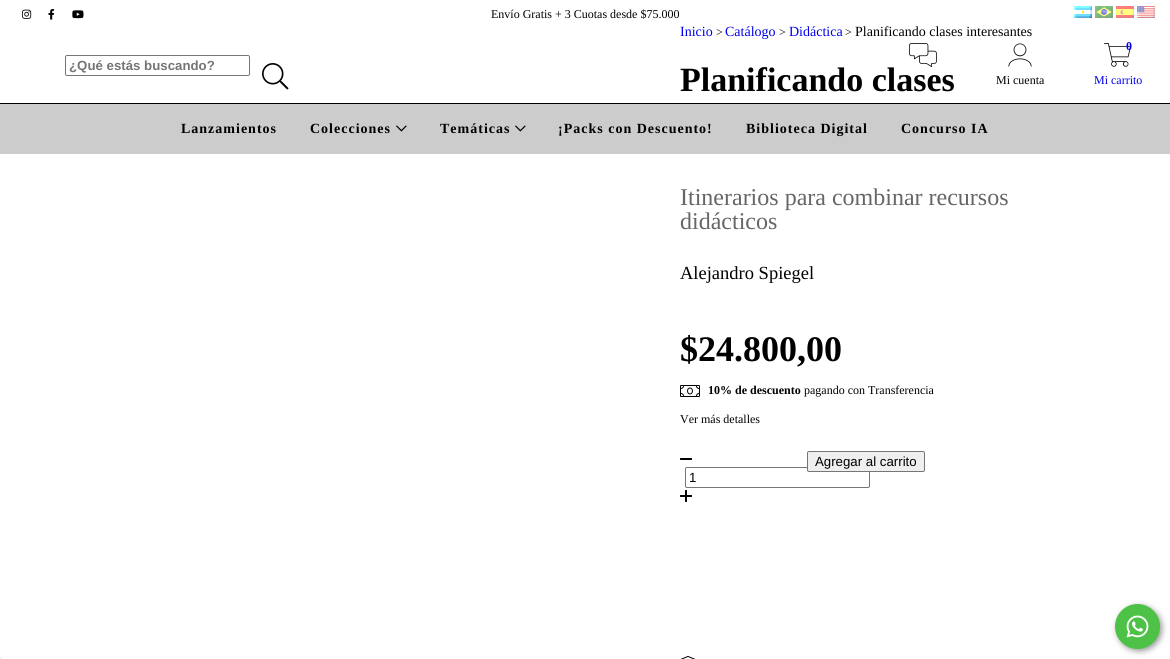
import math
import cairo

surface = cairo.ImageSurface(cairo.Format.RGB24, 1170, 659)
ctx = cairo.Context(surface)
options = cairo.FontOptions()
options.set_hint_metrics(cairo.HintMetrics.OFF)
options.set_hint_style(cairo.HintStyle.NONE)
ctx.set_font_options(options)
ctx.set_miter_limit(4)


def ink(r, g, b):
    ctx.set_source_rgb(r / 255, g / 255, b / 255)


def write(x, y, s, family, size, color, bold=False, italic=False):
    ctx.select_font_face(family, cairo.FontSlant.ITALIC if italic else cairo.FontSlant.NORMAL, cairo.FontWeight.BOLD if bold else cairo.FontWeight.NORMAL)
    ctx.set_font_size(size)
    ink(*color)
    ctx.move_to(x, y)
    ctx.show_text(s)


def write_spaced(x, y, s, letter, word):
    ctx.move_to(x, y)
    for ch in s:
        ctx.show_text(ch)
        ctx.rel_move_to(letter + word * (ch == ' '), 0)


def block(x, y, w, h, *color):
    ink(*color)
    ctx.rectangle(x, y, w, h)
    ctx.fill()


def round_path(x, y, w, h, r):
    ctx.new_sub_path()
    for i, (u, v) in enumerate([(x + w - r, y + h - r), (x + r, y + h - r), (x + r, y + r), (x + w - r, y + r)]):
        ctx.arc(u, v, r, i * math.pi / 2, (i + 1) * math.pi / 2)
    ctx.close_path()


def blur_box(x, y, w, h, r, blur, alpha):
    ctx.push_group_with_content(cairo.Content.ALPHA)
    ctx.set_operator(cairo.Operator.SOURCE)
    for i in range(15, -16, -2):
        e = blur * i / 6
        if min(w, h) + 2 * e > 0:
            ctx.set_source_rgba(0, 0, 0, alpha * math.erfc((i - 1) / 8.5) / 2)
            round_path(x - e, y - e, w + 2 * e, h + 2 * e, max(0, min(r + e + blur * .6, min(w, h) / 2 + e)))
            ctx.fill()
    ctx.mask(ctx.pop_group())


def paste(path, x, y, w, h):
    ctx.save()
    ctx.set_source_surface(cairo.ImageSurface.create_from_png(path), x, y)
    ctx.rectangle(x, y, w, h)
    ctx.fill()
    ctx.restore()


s1 = dict(family="Liberation Serif", size=12, color=(0, 0, 0))
s2 = dict(family="Liberation Sans", size=13.25, color=(117, 117, 117), bold=True)
s3 = dict(family="Liberation Serif", size=12, color=(0, 0, 238), bold=True)
s4 = dict(family="Liberation Serif", size=12, color=(0, 0, 238))
s5 = dict(family="Liberation Serif", size=14, color=(0, 0, 238))
s6 = dict(family="Liberation Serif", size=14, color=(0, 0, 0))
s7 = dict(family="Liberation Serif", size=34, color=(0, 0, 0), bold=True)
s8 = dict(family="Liberation Serif", size=24, color=(102, 102, 102))
s9 = dict(family="Liberation Serif", size=18.5, color=(0, 0, 0))
s10 = dict(family="Liberation Serif", size=36, color=(0, 0, 0), bold=True)
s11 = dict(family="Liberation Serif", size=12, color=(0, 0, 0), bold=True)
s12 = dict(family="Liberation Sans", size=13.25, color=(0, 0, 0))

ink(255, 255, 255)
ctx.paint()
paste("pic1.png", 22, 9, 10, 10)
paste("pic2.png", 48, 9, 7, 11)
paste("pic3.png", 72, 10, 12, 9)
write(491, 18, "Envío Gratis + 3 Cuotas desde $75.000", **s1)
paste("pic4.png", 1074, 6, 18, 12)
paste("pic5.png", 1095, 6, 18, 12)
paste("pic6.png", 1116, 6, 18, 12)
paste("pic7.png", 1137, 6, 18, 12)
round_path(65.5, 55.5, 184, 20, 1.5)
ink(118, 118, 118)
ctx.set_line_width(1)
ctx.stroke()
write(69, 70, "¿Qué estás buscando?", **s2)
paste("pic8.png", 262, 63, 27, 27)
paste("pic9.png", 909, 43, 28, 24)
paste("pic10.png", 1104, 43, 27, 24)
write(1126, 50, "0", **s3)
write(1094, 84, "Mi carrito", **s4)
paste("pic11.png", 1008, 43, 24, 24)
write(996, 84, "Mi cuenta", **s1)
block(0, 104, 1170, 50, 204, 204, 204)
block(0, 103, 1170, 1, 0, 0, 0)
ctx.select_font_face("Liberation Serif", cairo.FontSlant.NORMAL, cairo.FontWeight.BOLD)
ctx.set_font_size(14)
write_spaced(181, 133, "Lanzamientos", 1, 0)
write_spaced(310, 133, "Colecciones", 1, 0)
paste("pic12.png", 396, 125, 11, 7)
write_spaced(440, 133, "Temáticas", 1, 0)
paste("pic12.png", 515, 125, 11, 7)
write_spaced(558, 133, "¡Packs con Descuento!", 1, 0)
write_spaced(746, 133, "Biblioteca Digital", 1, 0)
write_spaced(901, 133, "Concurso IA", 1, 0)
write(680, 36, "Inicio", **s5)
write(716, 36, ">", **s1)
write(725, 36, "Catálogo", **s5)
write(779, 36, ">", **s1)
write(789, 36, "Didáctica", **s5)
write(845, 36, ">", **s1)
write(855, 36, "Planificando clases interesantes", **s6)
write(680, 91, "Planificando clases", **s7)
write(680, 205, "Itinerarios para combinar recursos", **s8)
write(680, 229, "didácticos", **s8)
write(680, 279, "Alejandro Spiegel", **s9)
write(680, 361, "$24.800,00", **s10)
paste("pic13.png", 680, 385, 20, 12)
write(708, 394, "10% de descuento", **s11)
write(804, 394, "pagando con Transferencia", **s1)
write(680, 423, "Ver más detalles", **s1)
round_path(685.5, 467.5, 184, 20, 1.5)
ink(118, 118, 118)
ctx.stroke()
ink(239, 239, 239)
round_path(807.5, 451.5, 117, 20, 1.5)
ctx.fill_preserve()
ink(118, 118, 118)
ctx.stroke()
write(815, 466, "Agregar al carrito", **s12)
paste("pic14.png", 680, 458, 12, 2)
write(689, 482, "1", **s12)
paste("pic15.png", 680, 490, 12, 12)
paste("pic16.png", 681, 656, 14, 3)
block(0, 657, 2, 2, 245, 245, 245)
ink(0, 0, 0)
blur_box(1117, 606, 45, 45, 22.5, 3, 0.4)
ink(77, 194, 71)
ctx.arc(1137.5, 626.5, 22.5, 0, 2 * math.pi)
ctx.fill()
paste("pic17.png", 1126, 615, 23, 23)
surface.write_to_png("screenshot.png")
